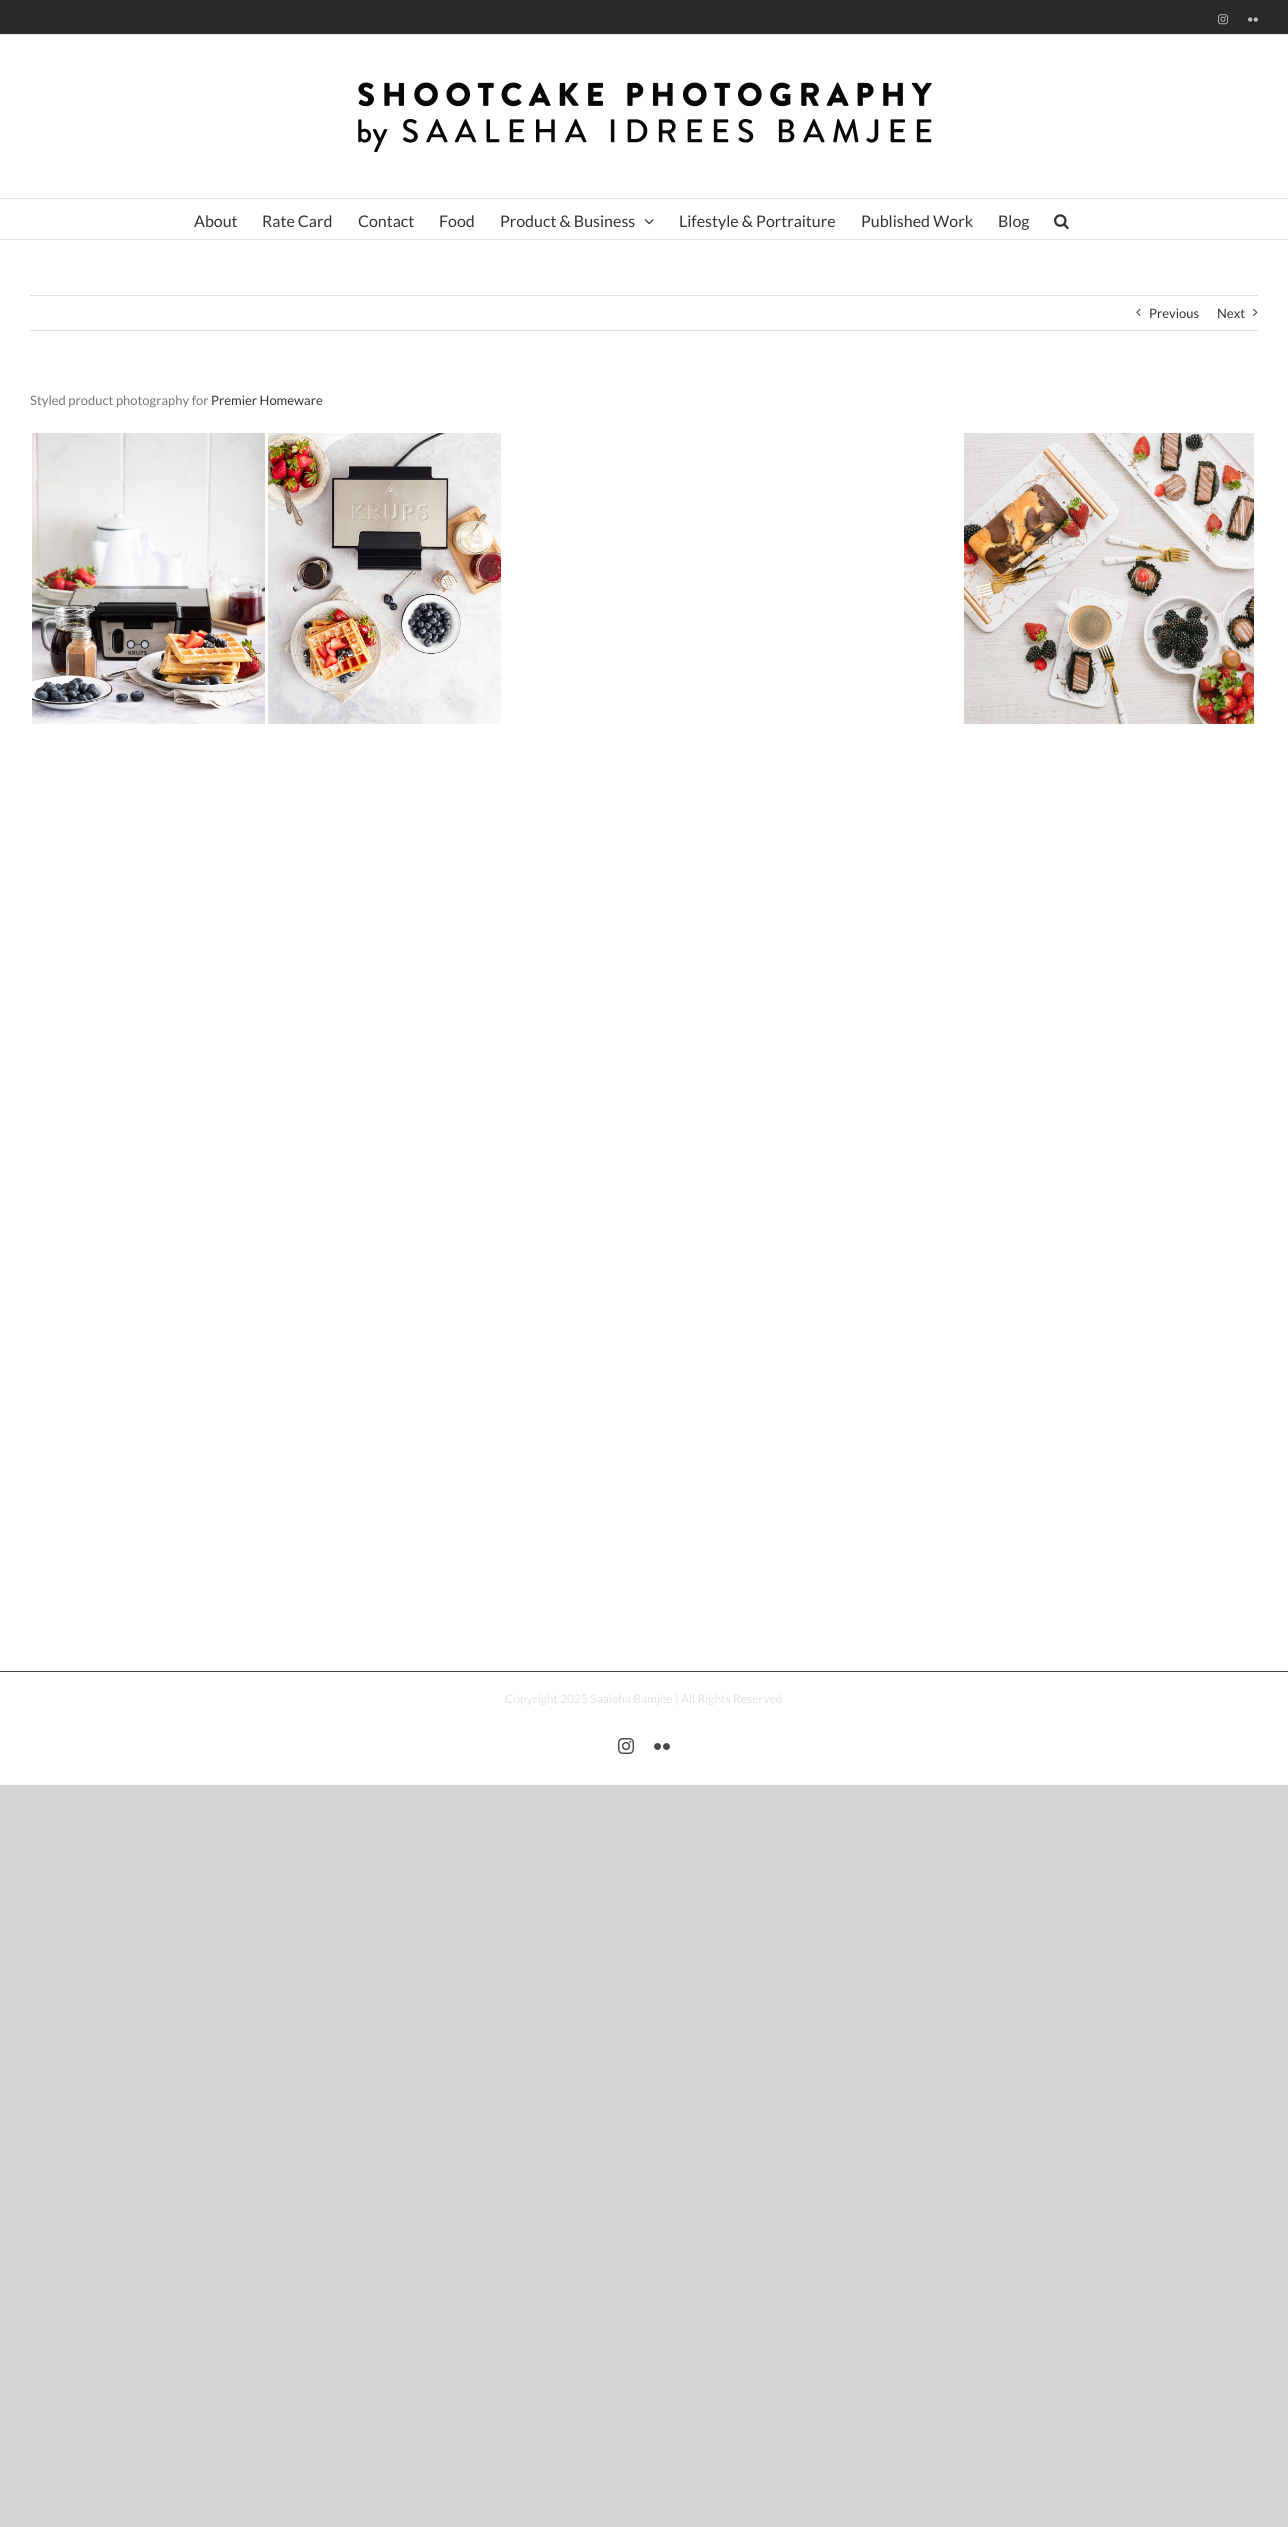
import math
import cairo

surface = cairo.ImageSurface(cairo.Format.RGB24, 1288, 2527)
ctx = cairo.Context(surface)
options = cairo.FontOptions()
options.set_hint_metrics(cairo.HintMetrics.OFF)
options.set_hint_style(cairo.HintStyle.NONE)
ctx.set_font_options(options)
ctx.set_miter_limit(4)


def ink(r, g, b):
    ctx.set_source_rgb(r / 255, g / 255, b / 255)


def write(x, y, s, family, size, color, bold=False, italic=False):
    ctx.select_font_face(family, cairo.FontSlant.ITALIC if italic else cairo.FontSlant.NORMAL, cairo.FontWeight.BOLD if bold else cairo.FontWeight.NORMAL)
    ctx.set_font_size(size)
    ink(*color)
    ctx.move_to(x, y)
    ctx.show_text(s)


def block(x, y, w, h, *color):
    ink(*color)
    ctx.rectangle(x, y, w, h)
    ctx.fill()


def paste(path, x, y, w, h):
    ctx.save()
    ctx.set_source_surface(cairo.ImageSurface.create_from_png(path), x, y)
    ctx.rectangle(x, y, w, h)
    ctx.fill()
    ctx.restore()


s1 = dict(family="Lato", size=16, color=(51, 51, 51))
s2 = dict(family="Lato", size=13, color=(51, 51, 51))
s3 = dict(family="Lato", size=13, color=(116, 116, 116))
s4 = dict(family="Lato", size=12, color=(226, 226, 226))

ink(215, 214, 214)
ctx.paint()
block(0, 35, 1288, 1750, 255, 255, 255)
block(0, 0, 1288, 34, 41, 41, 42)
block(0, 34, 1288, 1, 229, 229, 229)
paste("pic1.png", 1218, 14, 10, 11)
paste("pic2.png", 1248, 17, 10, 5)
block(0, 198, 1288, 1, 229, 229, 229)
paste("pic3.png", 358, 82, 574, 70)
block(0, 239, 1288, 1, 229, 229, 229)
write(194, 227, "About", **s1)
write(262, 227, "Rate Card", **s1)
write(358, 227, "Contact", **s1)
write(439, 227, "Food", **s1)
write(500, 227, "Product & Business", **s1)
paste("pic4.png", 644, 219, 10, 6)
write(679, 227, "Lifestyle & Portraiture", **s1)
write(861, 227, "Published Work", **s1)
write(998, 227, "Blog", **s1)
paste("pic5.png", 1054, 214, 15, 16)
block(30, 295, 1228, 1, 224, 222, 222)
block(30, 330, 1228, 1, 224, 222, 222)
paste("pic6.png", 1136, 308, 5, 8)
write(1149, 318, "Previous", **s2)
write(1217, 318, "Next", **s2)
paste("pic7.png", 1253, 308, 5, 8)
write(30, 405, "Styled product photography for", **s3)
write(211, 405, "Premier Homeware", **s2)
paste("pic8.png", 32, 433, 233, 291)
paste("pic9.png", 268, 433, 233, 291)
paste("pic10.png", 964, 433, 290, 291)
block(0, 1671, 1288, 1, 75, 76, 77)
write(505, 1703, "Copyright 2025 Saaleha Bamjee | All Rights Reserved", **s4)
paste("pic11.png", 618, 1738, 16, 16)
paste("pic12.png", 654, 1743, 16, 7)
surface.write_to_png("screenshot.png")
